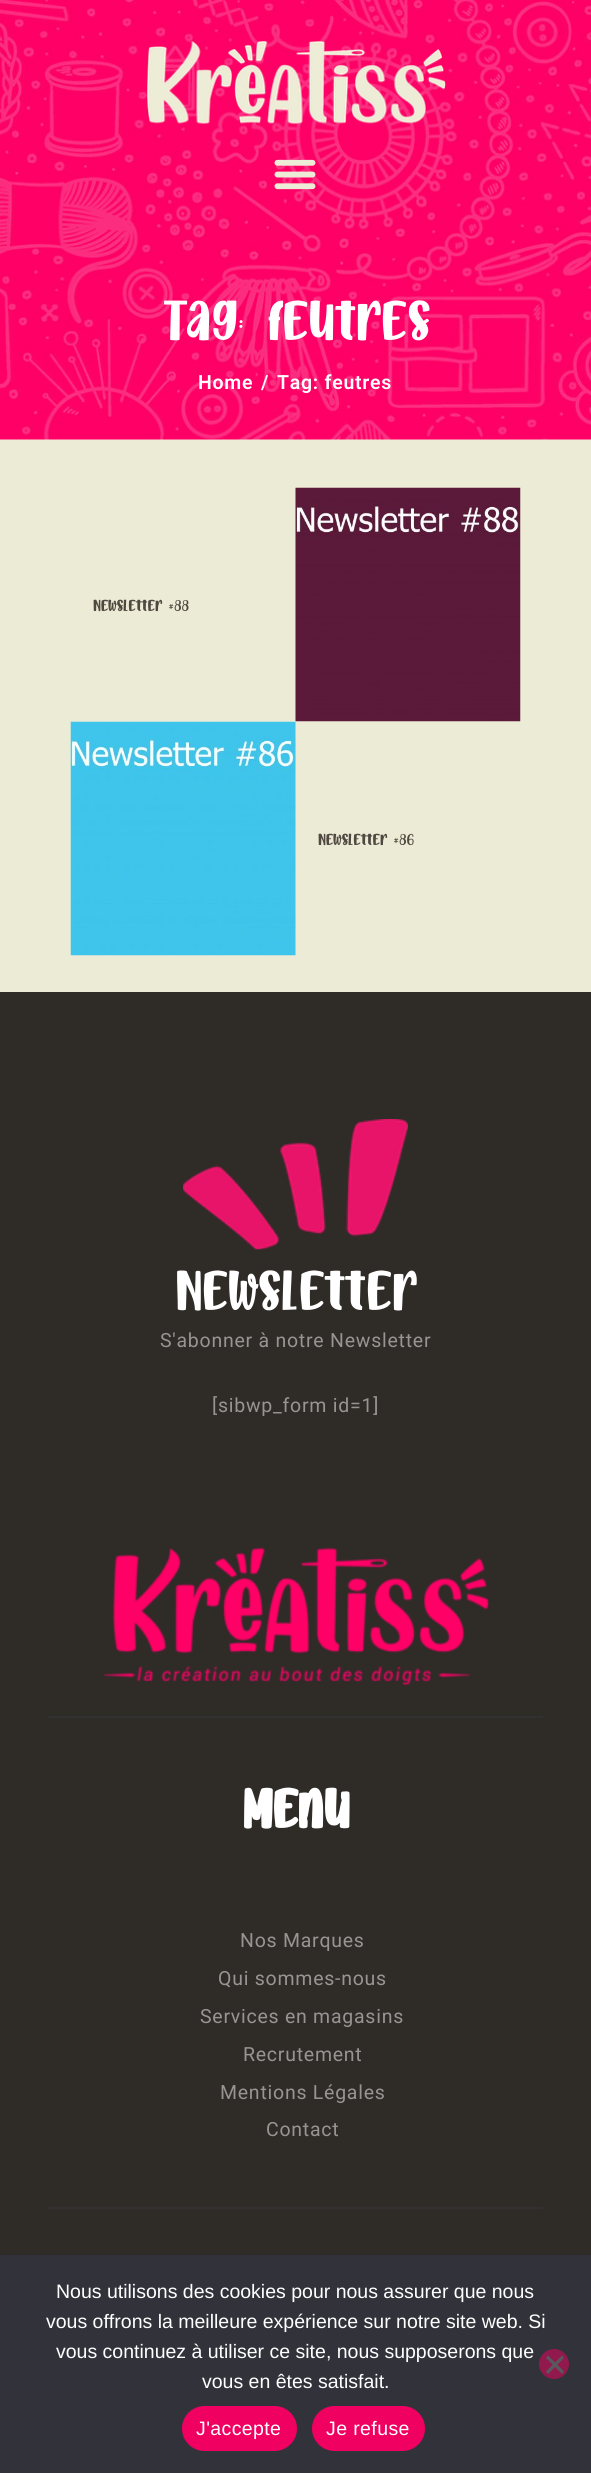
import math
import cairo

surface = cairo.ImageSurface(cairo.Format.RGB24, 591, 2473)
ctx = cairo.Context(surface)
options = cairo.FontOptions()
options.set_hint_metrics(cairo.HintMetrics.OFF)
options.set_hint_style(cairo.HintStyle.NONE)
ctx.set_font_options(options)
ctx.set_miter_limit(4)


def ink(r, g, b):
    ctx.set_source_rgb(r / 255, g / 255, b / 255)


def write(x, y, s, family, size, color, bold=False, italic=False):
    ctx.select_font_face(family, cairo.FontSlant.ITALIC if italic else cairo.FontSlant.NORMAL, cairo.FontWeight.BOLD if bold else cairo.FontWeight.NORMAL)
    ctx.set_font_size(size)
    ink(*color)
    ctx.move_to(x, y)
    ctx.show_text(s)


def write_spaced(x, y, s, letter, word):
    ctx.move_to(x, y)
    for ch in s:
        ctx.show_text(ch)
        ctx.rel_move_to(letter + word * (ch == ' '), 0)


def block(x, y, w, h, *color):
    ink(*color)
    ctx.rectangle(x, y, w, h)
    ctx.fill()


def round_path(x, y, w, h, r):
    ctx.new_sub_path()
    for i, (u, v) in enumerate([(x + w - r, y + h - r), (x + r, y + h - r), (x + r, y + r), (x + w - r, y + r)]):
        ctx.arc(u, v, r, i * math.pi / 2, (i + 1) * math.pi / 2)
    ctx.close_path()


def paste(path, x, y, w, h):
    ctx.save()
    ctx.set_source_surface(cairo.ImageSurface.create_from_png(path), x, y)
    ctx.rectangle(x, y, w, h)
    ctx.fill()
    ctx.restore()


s1 = dict(family="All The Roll", size=84, color=(255, 255, 255))
s2 = dict(family="All The Roll", size=24, color=(78, 72, 65))
s3 = dict(family="All The Roll", size=81, color=(255, 255, 255), bold=True)
s4 = dict(family="Liberation Sans", size=19.5, color=(255, 255, 255))

ink(236, 235, 213)
ctx.paint()
paste("pic1.png", 0, 0, 591, 440)
paste("pic2.png", 147, 41, 299, 84)
paste("pic3.png", 274, 159, 42, 31)
write(162, 340, "Tag: feutres", **s1)
ctx.select_font_face("Roboto SemiBold")
ctx.set_font_size(19.5)
write_spaced(198, 389, "Home", 0.75, 0)
write_spaced(261, 389, "/", 0.75, 0)
write_spaced(277, 389, "Tag: feutres", 0.75, 0)
write(93, 611, "Newsletter #88", **s2)
paste("pic4.png", 295, 487, 226, 235)
paste("pic5.png", 70, 721, 226, 235)
write(318, 845, "Newsletter #86", **s2)
block(0, 992, 591, 1263, 47, 43, 39)
paste("pic6.png", 183, 1119, 225, 131)
write(175, 1310, "Newsletter", **s1)
ctx.select_font_face("Roboto")
ctx.set_font_size(19.5)
ink(151, 149, 147)
write_spaced(160, 1347, "S'abonner à notre Newsletter", 0.75, 0)
write_spaced(212, 1412, "[sibwp_form id=1]", 0.75, 0)
paste("pic7.png", 103, 1547, 387, 139)
block(48, 1716, 495, 2, 49, 49, 49)
write(242, 1828, "Menu", **s3)
ctx.select_font_face("Roboto")
ctx.set_font_size(19.5)
ink(151, 149, 147)
write_spaced(240, 1947, "Nos Marques", 0.75, 0)
write_spaced(218, 1985, "Qui sommes-nous", 0.75, 0)
write_spaced(200, 2023, "Services en magasins", 0.75, 0)
write_spaced(243, 2061, "Recrutement", 0.75, 0)
write_spaced(220, 2099, "Mentions Légales", 0.75, 0)
write_spaced(266, 2136, "Contact", 0.75, 0)
block(48, 2207, 495, 2, 49, 49, 49)
block(0, 2255, 591, 218, 50, 50, 58)
write(56, 2298, "Nous utilisons des cookies pour nous assurer que nous", **s4)
write(46, 2328, "vous offrons la meilleure expérience sur notre site web. Si", **s4)
write(56, 2358, "vous continuez à utiliser ce site, nous supposerons que", **s4)
write(202, 2388, "vous en êtes satisfait.", **s4)
ink(145, 25, 77)
ctx.new_path()
ctx.arc(554, 2364, 15, 0, 2 * math.pi)
ctx.fill()
ink(89, 89, 93)
ctx.new_path()
ctx.move_to(562, 2355.5)
ctx.line_to(564, 2358)
ctx.line_to(548, 2374)
ctx.line_to(546, 2371.5)
ctx.close_path()
ctx.fill()
ctx.new_path()
ctx.move_to(546, 2358)
ctx.line_to(548, 2355.5)
ctx.line_to(564, 2371.5)
ctx.line_to(562, 2374)
ctx.close_path()
ctx.fill()
ink(240, 0, 96)
round_path(182, 2406, 115, 45, 22.5)
ctx.fill()
ink(255, 255, 255)
write_spaced(196, 2435, "J'accepte", 0.4, 0)
ink(240, 0, 96)
round_path(312, 2406, 113, 45, 22.5)
ctx.fill()
ink(255, 255, 255)
write_spaced(326, 2435, "Je refuse", 0.4, 0)
surface.write_to_png("screenshot.png")
